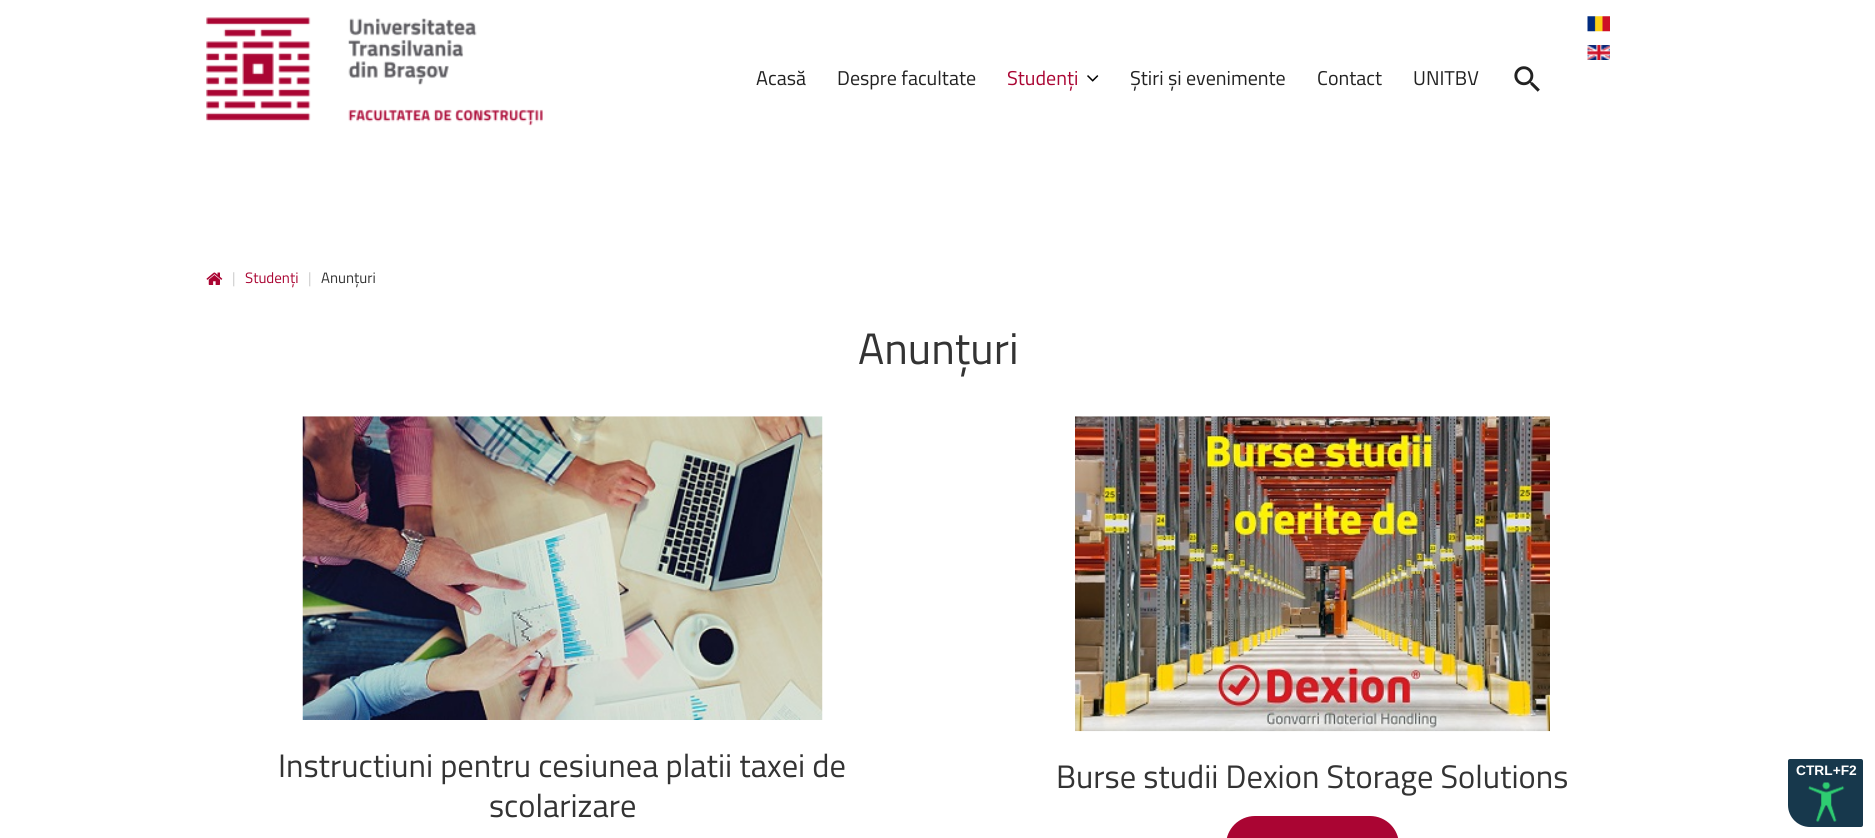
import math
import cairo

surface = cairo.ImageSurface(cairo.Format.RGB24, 1875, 838)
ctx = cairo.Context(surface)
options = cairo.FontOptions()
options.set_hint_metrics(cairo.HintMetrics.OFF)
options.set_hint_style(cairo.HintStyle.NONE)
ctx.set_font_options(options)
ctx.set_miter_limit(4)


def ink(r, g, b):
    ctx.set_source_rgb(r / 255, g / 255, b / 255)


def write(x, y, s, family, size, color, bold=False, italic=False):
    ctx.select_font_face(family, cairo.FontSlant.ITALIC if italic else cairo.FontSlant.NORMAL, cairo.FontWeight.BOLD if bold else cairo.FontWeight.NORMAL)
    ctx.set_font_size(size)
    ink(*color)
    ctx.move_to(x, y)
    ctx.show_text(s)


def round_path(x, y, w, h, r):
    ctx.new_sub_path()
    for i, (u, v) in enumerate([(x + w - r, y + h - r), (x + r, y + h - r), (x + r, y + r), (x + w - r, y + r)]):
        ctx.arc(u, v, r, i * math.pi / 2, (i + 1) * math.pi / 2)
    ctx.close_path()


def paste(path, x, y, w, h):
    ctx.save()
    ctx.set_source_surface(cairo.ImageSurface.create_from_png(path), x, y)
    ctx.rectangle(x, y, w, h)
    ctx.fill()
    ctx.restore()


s1 = dict(family="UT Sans", size=20, color=(34, 34, 34))
s2 = dict(family="UT Sans", size=20, color=(170, 5, 51))
s3 = dict(family="UT Sans", size=15, color=(204, 204, 204))
s4 = dict(family="UT Sans", size=15, color=(170, 5, 51))
s5 = dict(family="UT Sans", size=15, color=(51, 51, 51))
s6 = dict(family="UT Sans", size=44, color=(51, 51, 51))
s7 = dict(family="UT Sans", size=32.5, color=(51, 51, 51))
s8 = dict(family="Liberation Sans", size=13.75, color=(255, 255, 255), bold=True)

ink(255, 255, 255)
ctx.paint()
paste("pic1.png", 206, 17, 337, 109)
write(756, 85, "Acasă", **s1)
write(837, 85, "Despre facultate", **s1)
write(1007, 85, "Studenți", **s2)
paste("pic2.png", 1087, 75, 12, 7)
write(1130, 85, "Știri și evenimente", **s1)
write(1317, 85, "Contact", **s1)
write(1413, 85, "UNITBV", **s1)
paste("pic3.png", 1514, 66, 26, 26)
paste("pic4.png", 1587, 16, 23, 16)
paste("pic5.png", 1587, 45, 23, 15)
paste("pic6.png", 206, 272, 17, 13)
write(232, 283, "|", **s3)
write(245, 283, "Studenți", **s4)
write(308, 283, "|", **s3)
write(321, 283, "Anunțuri", **s5)
write(858, 364, "Anunțuri", **s6)
paste("pic7.png", 302, 416, 521, 304)
write(278, 777, "Instructiuni pentru cesiunea platii taxei de", **s7)
write(489, 817, "scolarizare", **s7)
paste("pic8.png", 1075, 416, 475, 316)
write(1056, 788, "Burse studii Dexion Storage Solutions", **s7)
ink(170, 5, 51)
round_path(1226, 816, 173, 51, 29)
ctx.fill()
ink(23, 56, 76)
ctx.new_path()
ctx.move_to(1790, 757.5)
ctx.line_to(1861, 757.5)
ctx.curve_to(1863, 757.5, 1864.5, 759, 1864.5, 761)
ctx.line_to(1864.5, 825)
ctx.curve_to(1864.5, 827, 1863, 828.5, 1861, 828.5)
ctx.line_to(1810, 828.5)
ctx.curve_to(1797, 828.5, 1786.5, 818, 1786.5, 805)
ctx.line_to(1786.5, 761)
ctx.curve_to(1786.5, 759, 1788, 757.5, 1790, 757.5)
ctx.close_path()
ctx.fill_preserve()
ink(255, 255, 255)
ctx.set_line_width(3)
ctx.stroke()
write(1796, 775, "CTRL+F2", **s8)
paste("pic9.png", 1808, 782, 37, 40)
surface.write_to_png("screenshot.png")
